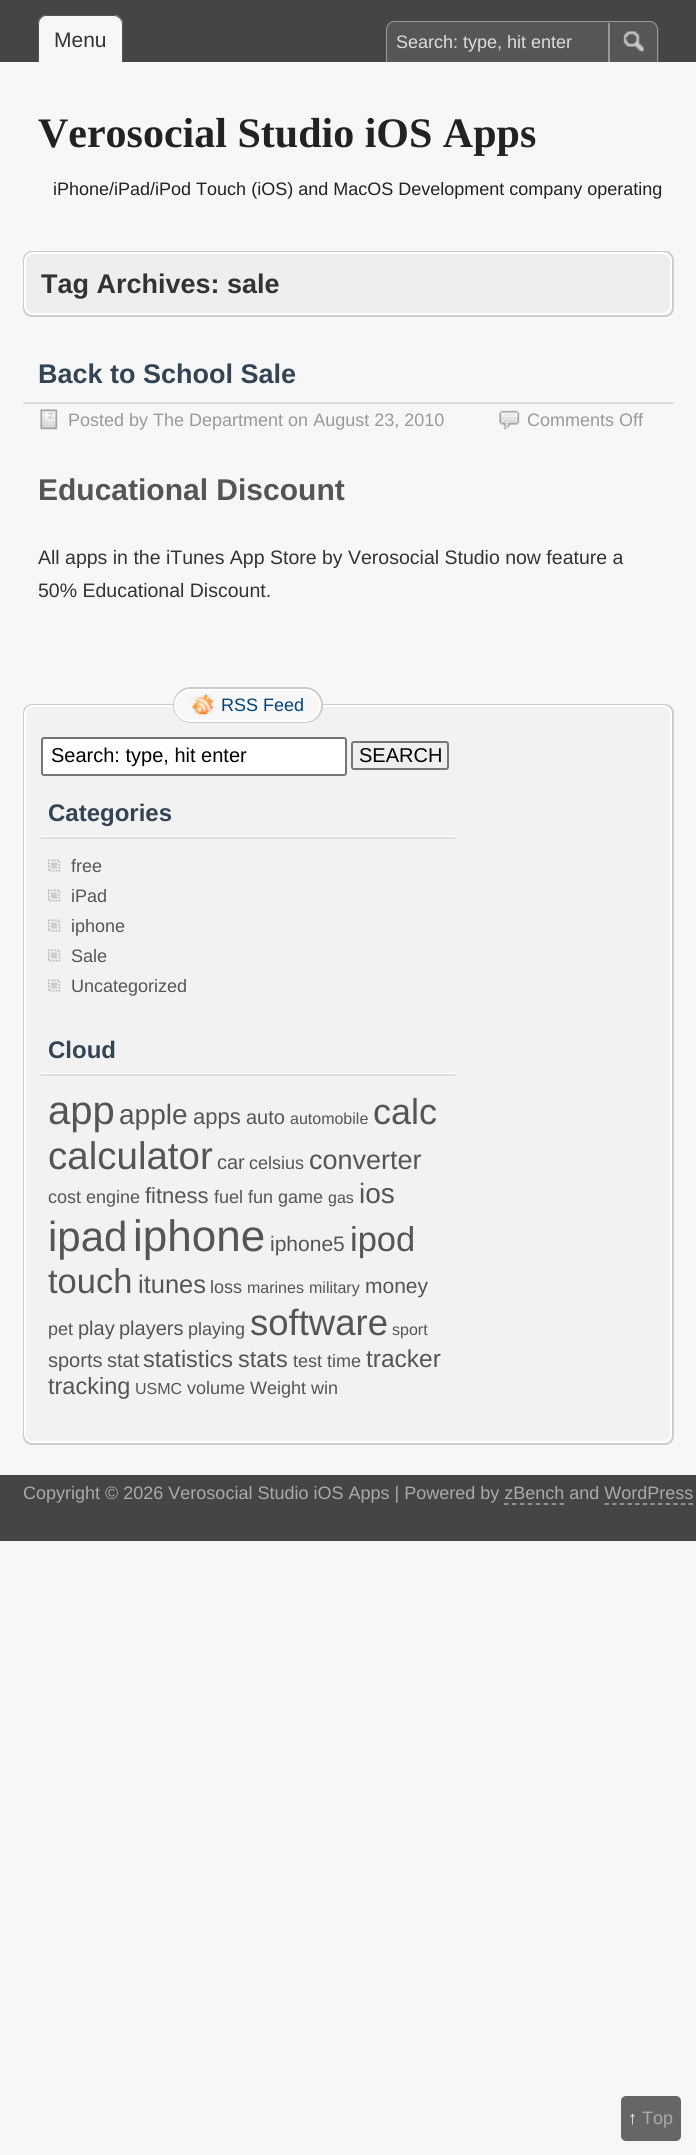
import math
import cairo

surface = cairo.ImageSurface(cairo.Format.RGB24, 696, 2155)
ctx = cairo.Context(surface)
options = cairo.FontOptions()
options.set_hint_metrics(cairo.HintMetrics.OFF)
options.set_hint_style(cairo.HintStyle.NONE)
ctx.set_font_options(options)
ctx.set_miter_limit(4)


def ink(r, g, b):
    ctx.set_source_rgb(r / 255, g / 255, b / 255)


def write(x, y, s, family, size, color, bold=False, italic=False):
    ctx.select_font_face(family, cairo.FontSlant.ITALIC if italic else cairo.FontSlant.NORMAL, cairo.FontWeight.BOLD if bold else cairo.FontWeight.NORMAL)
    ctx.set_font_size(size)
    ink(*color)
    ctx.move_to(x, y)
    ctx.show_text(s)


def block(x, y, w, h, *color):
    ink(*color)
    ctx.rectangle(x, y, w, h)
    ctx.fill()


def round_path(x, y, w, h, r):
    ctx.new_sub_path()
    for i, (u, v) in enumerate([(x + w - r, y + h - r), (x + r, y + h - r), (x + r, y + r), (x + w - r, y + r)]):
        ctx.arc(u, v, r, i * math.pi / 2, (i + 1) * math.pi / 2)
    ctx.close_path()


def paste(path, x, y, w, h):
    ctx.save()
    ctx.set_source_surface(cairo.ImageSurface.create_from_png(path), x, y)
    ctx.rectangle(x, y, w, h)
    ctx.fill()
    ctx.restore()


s1 = dict(family="Liberation Sans", size=21, color=(51, 51, 51))
s2 = dict(family="Liberation Sans", size=18, color=(221, 221, 221))
s3 = dict(family="Liberation Serif", size=42, color=(34, 34, 34), bold=True)
s4 = dict(family="Liberation Sans", size=18, color=(34, 34, 34))
s5 = dict(family="Liberation Sans", size=27, color=(51, 51, 51), bold=True)
s6 = dict(family="Liberation Sans", size=27, color=(51, 68, 85), bold=True)
s7 = dict(family="Liberation Sans", size=18, color=(153, 153, 153))
s8 = dict(family="Liberation Sans", size=30, color=(85, 85, 85), bold=True)
s9 = dict(family="Liberation Sans", size=19.5, color=(51, 51, 51))
s10 = dict(family="Liberation Sans", size=18, color=(0, 68, 119))
s11 = dict(family="Liberation Sans", size=20, color=(0, 0, 0))
s12 = dict(family="Liberation Sans", size=24, color=(51, 68, 85), bold=True)
s13 = dict(family="Liberation Sans", size=18, color=(85, 85, 85))
s14 = dict(family="Liberation Sans", size=40, color=(85, 85, 85))
s15 = dict(family="Liberation Sans", size=28, color=(85, 85, 85))
s16 = dict(family="Liberation Sans", size=22, color=(85, 85, 85))
s17 = dict(family="Liberation Sans", size=20, color=(85, 85, 85))
s18 = dict(family="Liberation Sans", size=16, color=(85, 85, 85))
s19 = dict(family="Liberation Sans", size=36, color=(85, 85, 85))
s20 = dict(family="Liberation Sans", size=38.5, color=(85, 85, 85))
s21 = dict(family="Liberation Sans", size=27, color=(85, 85, 85))
s22 = dict(family="Liberation Sans", size=42, color=(85, 85, 85))
s23 = dict(family="Liberation Sans", size=44, color=(85, 85, 85))
s24 = dict(family="Liberation Sans", size=21, color=(85, 85, 85))
s25 = dict(family="Liberation Sans", size=34.5, color=(85, 85, 85))
s26 = dict(family="Liberation Sans", size=25.5, color=(85, 85, 85))
s27 = dict(family="Liberation Sans", size=36.5, color=(85, 85, 85))
s28 = dict(family="Liberation Sans", size=23.5, color=(85, 85, 85))
s29 = dict(family="Liberation Sans", size=24.5, color=(85, 85, 85))
s30 = dict(family="Liberation Sans", size=18, color=(170, 170, 170))
s31 = dict(family="Liberation Sans", size=18, color=(250, 250, 250), bold=True)

ink(247, 247, 247)
ctx.paint()
block(0, 0, 696, 62, 69, 69, 70)
ink(247, 247, 247)
ctx.new_path()
ctx.move_to(47, 15)
ctx.line_to(114, 15)
ctx.curve_to(119, 15, 123, 19, 123, 24)
ctx.line_to(123, 62)
ctx.line_to(38, 62)
ctx.line_to(38, 24)
ctx.curve_to(38, 19, 42, 15, 47, 15)
ctx.close_path()
ctx.fill()
ink(85, 85, 85)
ctx.set_fill_rule(cairo.FillRule.EVEN_ODD)
ctx.new_path()
ctx.move_to(46, 15)
ctx.line_to(114, 15)
ctx.curve_to(119, 15, 123, 19, 123, 24)
ctx.line_to(123, 62)
ctx.line_to(38, 62)
ctx.line_to(38, 24)
ctx.curve_to(38, 19, 42, 15, 46, 15)
ctx.close_path()
ctx.move_to(46, 16)
ctx.line_to(114, 16)
ctx.curve_to(118, 16, 122, 20, 122, 24)
ctx.line_to(122, 62)
ctx.line_to(39, 62)
ctx.line_to(39, 24)
ctx.curve_to(39, 20, 42, 16, 46, 16)
ctx.close_path()
ctx.fill()
write(54, 47, "Menu", **s1)
ink(86, 86, 87)
ctx.new_path()
ctx.move_to(395, 21)
ctx.line_to(650, 21)
ctx.curve_to(655, 21, 659, 25, 659, 30)
ctx.line_to(659, 62)
ctx.line_to(386, 62)
ctx.line_to(386, 30)
ctx.curve_to(386, 25, 390, 21, 395, 21)
ctx.close_path()
ctx.fill()
ink(153, 153, 153)
ctx.new_path()
ctx.move_to(394, 21)
ctx.line_to(650, 21)
ctx.curve_to(654, 21, 658, 25, 658, 30)
ctx.line_to(658, 62)
ctx.line_to(386, 62)
ctx.line_to(386, 30)
ctx.curve_to(386, 25, 390, 21, 394, 21)
ctx.close_path()
ctx.move_to(394, 22)
ctx.line_to(650, 22)
ctx.curve_to(654, 22, 657, 26, 657, 30)
ctx.line_to(657, 62)
ctx.line_to(387, 62)
ctx.line_to(387, 30)
ctx.curve_to(387, 26, 390, 22, 394, 22)
ctx.close_path()
ctx.fill()
write(396, 48, "Search: type, hit enter", **s2)
paste("pic1.png", 623, 31, 21, 21)
block(608, 23, 2, 39, 153, 153, 153)
write(38, 147, "Verosocial Studio iOS Apps", **s3)
write(53, 195, "iPhone/iPad/iPod Touch (iOS) and MacOS Development company operating", **s4)
ink(238, 238, 238)
round_path(24, 252, 649, 64, 8)
ctx.fill_preserve()
ink(204, 204, 204)
ctx.stroke()
round_path(25, 253, 646, 61, 8)
ink(255, 255, 255)
ctx.stroke()
write(41, 293, "Tag Archives: sale", **s5)
block(23, 401, 651, 1, 250, 250, 250)
write(38, 383, "Back to School Sale", **s6)
block(23, 402, 651, 2, 221, 221, 221)
paste("pic2.png", 40, 409, 18, 21)
write(68, 426, "Posted by The Department on August 23, 2010", **s7)
paste("pic3.png", 499, 410, 21, 20)
write(527, 426, "Comments Off", **s7)
write(38, 500, "Educational Discount", **s8)
write(38, 564, "All apps in the iTunes App Store by Verosocial Studio now feature a", **s9)
write(38, 597, "50% Educational Discount.", **s9)
ink(242, 242, 242)
round_path(24, 705, 649, 739, 8)
ctx.fill_preserve()
ink(204, 204, 204)
ctx.stroke()
round_path(25, 706, 646, 736, 8)
ink(255, 255, 255)
ctx.stroke()
round_path(174, 688, 148, 34, 17)
ink(204, 204, 204)
ctx.stroke()
ink(247, 247, 247)
round_path(175, 690, 145, 31, 15.5)
ctx.fill_preserve()
ink(255, 255, 255)
ctx.stroke()
paste("pic4.png", 190, 694, 25, 22)
write(221, 711, "RSS Feed", **s10)
ink(255, 255, 255)
round_path(42, 738, 304, 37, 2)
ctx.fill_preserve()
ink(118, 118, 118)
ctx.stroke()
write(51, 762, "Search: type, hit enter", **s11)
ink(239, 239, 239)
round_path(352, 742, 96, 27, 2)
ctx.fill_preserve()
ink(118, 118, 118)
ctx.stroke()
write(359, 762, "SEARCH", **s11)
block(41, 836, 414, 1, 255, 255, 255)
write(48, 821, "Categories", **s12)
block(41, 837, 414, 2, 221, 221, 221)
paste("pic5.png", 48, 859, 13, 13)
write(71, 872, "free", **s13)
paste("pic5.png", 48, 889, 13, 13)
write(71, 902, "iPad", **s13)
paste("pic5.png", 48, 919, 13, 13)
write(71, 932, "iphone", **s13)
paste("pic5.png", 48, 949, 13, 13)
write(71, 962, "Sale", **s13)
paste("pic5.png", 48, 979, 13, 13)
write(71, 992, "Uncategorized", **s13)
block(41, 1073, 414, 1, 255, 255, 255)
write(48, 1058, "Cloud", **s12)
block(41, 1074, 414, 2, 221, 221, 221)
write(48, 1124, "app", **s14)
write(119, 1124, "apple", **s15)
write(193, 1124, "apps", **s16)
write(246, 1124, "auto", **s17)
write(290, 1124, "automobile", **s18)
write(373, 1124, "calc", **s19)
write(48, 1169, "calculator", **s20)
write(217, 1169, "car", **s17)
write(249, 1169, "celsius", **s13)
write(309, 1169, "converter", **s21)
write(48, 1203, "cost engine", **s13)
write(145, 1203, "fitness", **s16)
write(214, 1203, "fuel fun game", **s13)
write(328, 1203, "gas", **s18)
write(359, 1203, "ios", **s15)
write(48, 1251, "ipad", **s22)
write(133, 1251, "iphone", **s23)
write(270, 1251, "iphone5", **s24)
write(350, 1251, "ipod", **s25)
write(48, 1293, "touch", **s25)
write(138, 1293, "itunes", **s26)
write(210, 1293, "loss", **s13)
write(247, 1293, "marines", **s18)
write(309, 1293, "military", **s18)
write(365, 1293, "money", **s24)
write(48, 1335, "pet", **s13)
write(78, 1335, "play", **s17)
write(119, 1335, "players", **s17)
write(188, 1335, "playing", **s13)
write(250, 1335, "software", **s27)
write(392, 1335, "sport", **s18)
write(48, 1367, "sports", **s17)
write(107, 1367, "stat", **s17)
write(143, 1367, "statistics", **s28)
write(238, 1367, "stats", **s28)
write(293, 1367, "test time", **s13)
write(366, 1367, "tracker", **s29)
write(48, 1394, "tracking", **s28)
write(135, 1394, "USMC", **s18)
write(187, 1394, "volume Weight win", **s13)
block(0, 1475, 696, 66, 69, 69, 70)
write(23, 1499, "Copyright © 2026 Verosocial Studio iOS Apps | Powered by zBench and WordPress", **s30)
ctx.new_path()
ctx.move_to(504, 1504)
ctx.line_to(564, 1504)
ctx.set_line_width(1.5)
ctx.set_dash([4.5, 3.44])
ctx.stroke()
ctx.new_path()
ctx.move_to(604.5, 1504)
ctx.line_to(693, 1504)
ctx.set_dash([4.5, 3.13])
ctx.stroke()
ink(102, 102, 102)
round_path(621, 2096, 60, 45, 5)
ctx.fill()
write(628, 2124, "↑", **s31)
write(642, 2124, "Top", **s30)
surface.write_to_png("screenshot.png")
